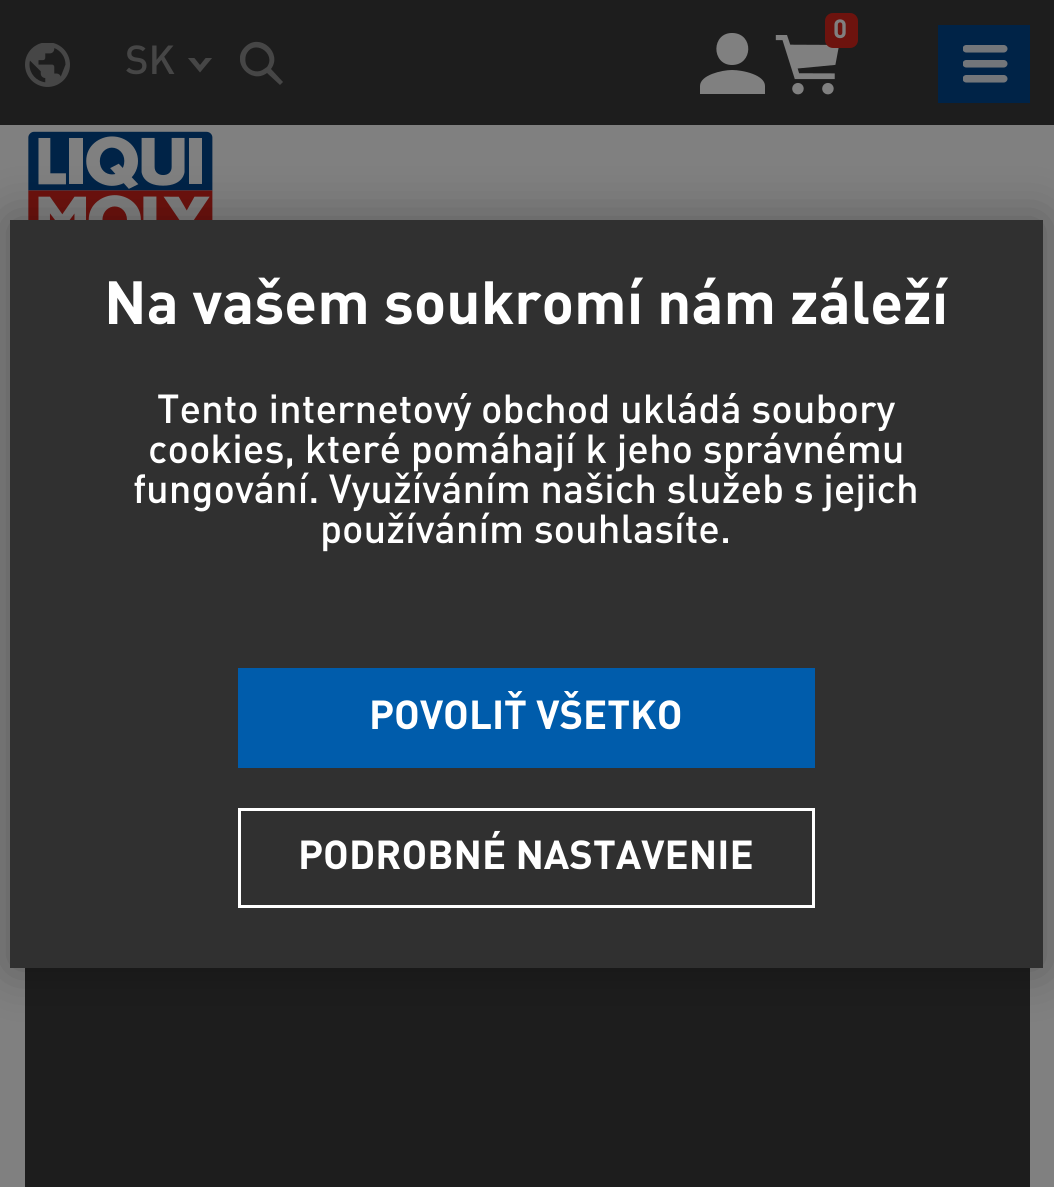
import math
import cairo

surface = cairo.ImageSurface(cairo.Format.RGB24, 1054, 1187)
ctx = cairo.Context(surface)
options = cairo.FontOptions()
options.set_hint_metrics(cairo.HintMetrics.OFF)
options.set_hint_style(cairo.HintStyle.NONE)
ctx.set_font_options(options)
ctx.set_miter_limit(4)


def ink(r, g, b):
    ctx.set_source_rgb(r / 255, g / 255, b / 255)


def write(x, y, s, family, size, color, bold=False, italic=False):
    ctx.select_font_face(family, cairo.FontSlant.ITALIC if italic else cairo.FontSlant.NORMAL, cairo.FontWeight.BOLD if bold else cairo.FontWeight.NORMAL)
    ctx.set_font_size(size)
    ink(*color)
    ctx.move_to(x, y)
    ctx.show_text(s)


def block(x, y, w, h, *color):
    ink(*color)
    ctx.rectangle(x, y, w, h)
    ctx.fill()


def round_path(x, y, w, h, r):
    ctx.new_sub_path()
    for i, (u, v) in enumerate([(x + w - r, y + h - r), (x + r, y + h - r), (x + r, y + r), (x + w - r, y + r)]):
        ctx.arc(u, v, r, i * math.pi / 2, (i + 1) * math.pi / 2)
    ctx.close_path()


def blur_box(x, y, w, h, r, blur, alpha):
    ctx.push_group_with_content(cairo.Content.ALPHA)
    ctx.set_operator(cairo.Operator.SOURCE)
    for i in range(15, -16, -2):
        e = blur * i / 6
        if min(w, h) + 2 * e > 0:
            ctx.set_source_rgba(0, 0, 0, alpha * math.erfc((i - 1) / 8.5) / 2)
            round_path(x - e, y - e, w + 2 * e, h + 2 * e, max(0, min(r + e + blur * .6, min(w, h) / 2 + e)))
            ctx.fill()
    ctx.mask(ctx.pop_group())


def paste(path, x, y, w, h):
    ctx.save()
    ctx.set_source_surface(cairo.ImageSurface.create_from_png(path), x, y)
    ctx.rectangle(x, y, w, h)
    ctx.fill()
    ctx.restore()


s1 = dict(family="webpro", size=26, color=(128, 128, 128), bold=True)
s2 = dict(family="webpro Medium", size=40, color=(70, 70, 70))
s3 = dict(family="webpro", size=60, color=(255, 255, 255), bold=True)
s4 = dict(family="webpro Medium", size=40, color=(255, 255, 255))
s5 = dict(family="webpro", size=40, color=(255, 255, 255), bold=True)

ink(128, 128, 128)
ctx.paint()
block(0, 0, 1054, 125, 29, 29, 29)
paste("pic1.png", 775, 35, 64, 60)
ink(109, 19, 14)
round_path(825, 13, 33, 35, 8)
ctx.fill()
write(833, 38, "0", **s1)
ctx.new_path()
ctx.move_to(732, 70)
ctx.curve_to(743, 70, 765, 75, 765, 86)
ctx.line_to(765, 94)
ctx.line_to(700, 94)
ctx.line_to(700, 86)
ctx.curve_to(700, 75, 722, 70, 732, 70)
ctx.close_path()
ctx.move_to(732, 65)
ctx.curve_to(711, 65, 711, 32, 733, 33)
ctx.curve_to(754, 34, 753, 65, 732, 65)
ctx.close_path()
ctx.fill()
paste("pic2.png", 25, 43, 45, 44)
ctx.save()
ctx.rectangle(188, 58, 25, 15)
ctx.clip()
ink(70, 70, 70)
ctx.new_path()
ctx.move_to(200, 72.5)
ctx.line_to(187.5, 57.5)
ctx.line_to(194, 57.5)
ctx.line_to(200, 65)
ctx.line_to(206, 57.5)
ctx.line_to(212.5, 57.5)
ctx.close_path()
ctx.fill()
ctx.restore()
write(125, 74, "SK", **s2)
ctx.save()
ctx.rectangle(240, 40, 45, 48)
ctx.clip()
ctx.new_path()
ctx.move_to(271, 69)
ctx.line_to(283, 82)
ctx.line_to(280, 85)
ctx.line_to(267, 73)
ctx.curve_to(251, 85, 230, 62, 245, 47)
ctx.curve_to(260, 32, 283, 53, 271, 69)
ctx.close_path()
ctx.move_to(267, 67)
ctx.curve_to(277, 53, 253, 38, 246, 55)
ctx.curve_to(245, 58, 245, 63, 247, 66)
ctx.curve_to(251, 72, 259, 73, 264, 69)
ctx.close_path()
ctx.fill()
ctx.restore()
paste("pic3.png", 28, 131, 185, 89)
block(938, 25, 92, 78, 0, 35, 71)
paste("pic4.png", 963, 45, 45, 38)
block(25, 968, 1005, 219, 29, 29, 29)
ink(0, 0, 0)
blur_box(10, 220, 1033, 748, 0, 25, 0.3)
block(10, 220, 1033, 748, 48, 48, 48)
write(104, 324, "Na vašem soukromí nám záleží", **s3)
ctx.save()
ctx.rectangle(83, 393, 887, 160)
ctx.clip()
write(157, 423, "Tento internetový obchod ukládá soubory", **s4)
ctx.restore()
write(148, 463, "cookies, které pomáhají k jeho správnému", **s4)
write(133, 503, "fungování. Využíváním našich služeb s jejich", **s4)
write(320, 543, "používáním souhlasíte.", **s4)
block(238, 668, 577, 100, 0, 92, 171)
write(369, 729, "POVOLIŤ VŠETKO", **s5)
ctx.rectangle(239.5, 809.5, 574, 97)
ctx.set_line_width(3)
ctx.stroke()
write(298, 869, "PODROBNÉ NASTAVENIE", **s5)
surface.write_to_png("screenshot.png")
